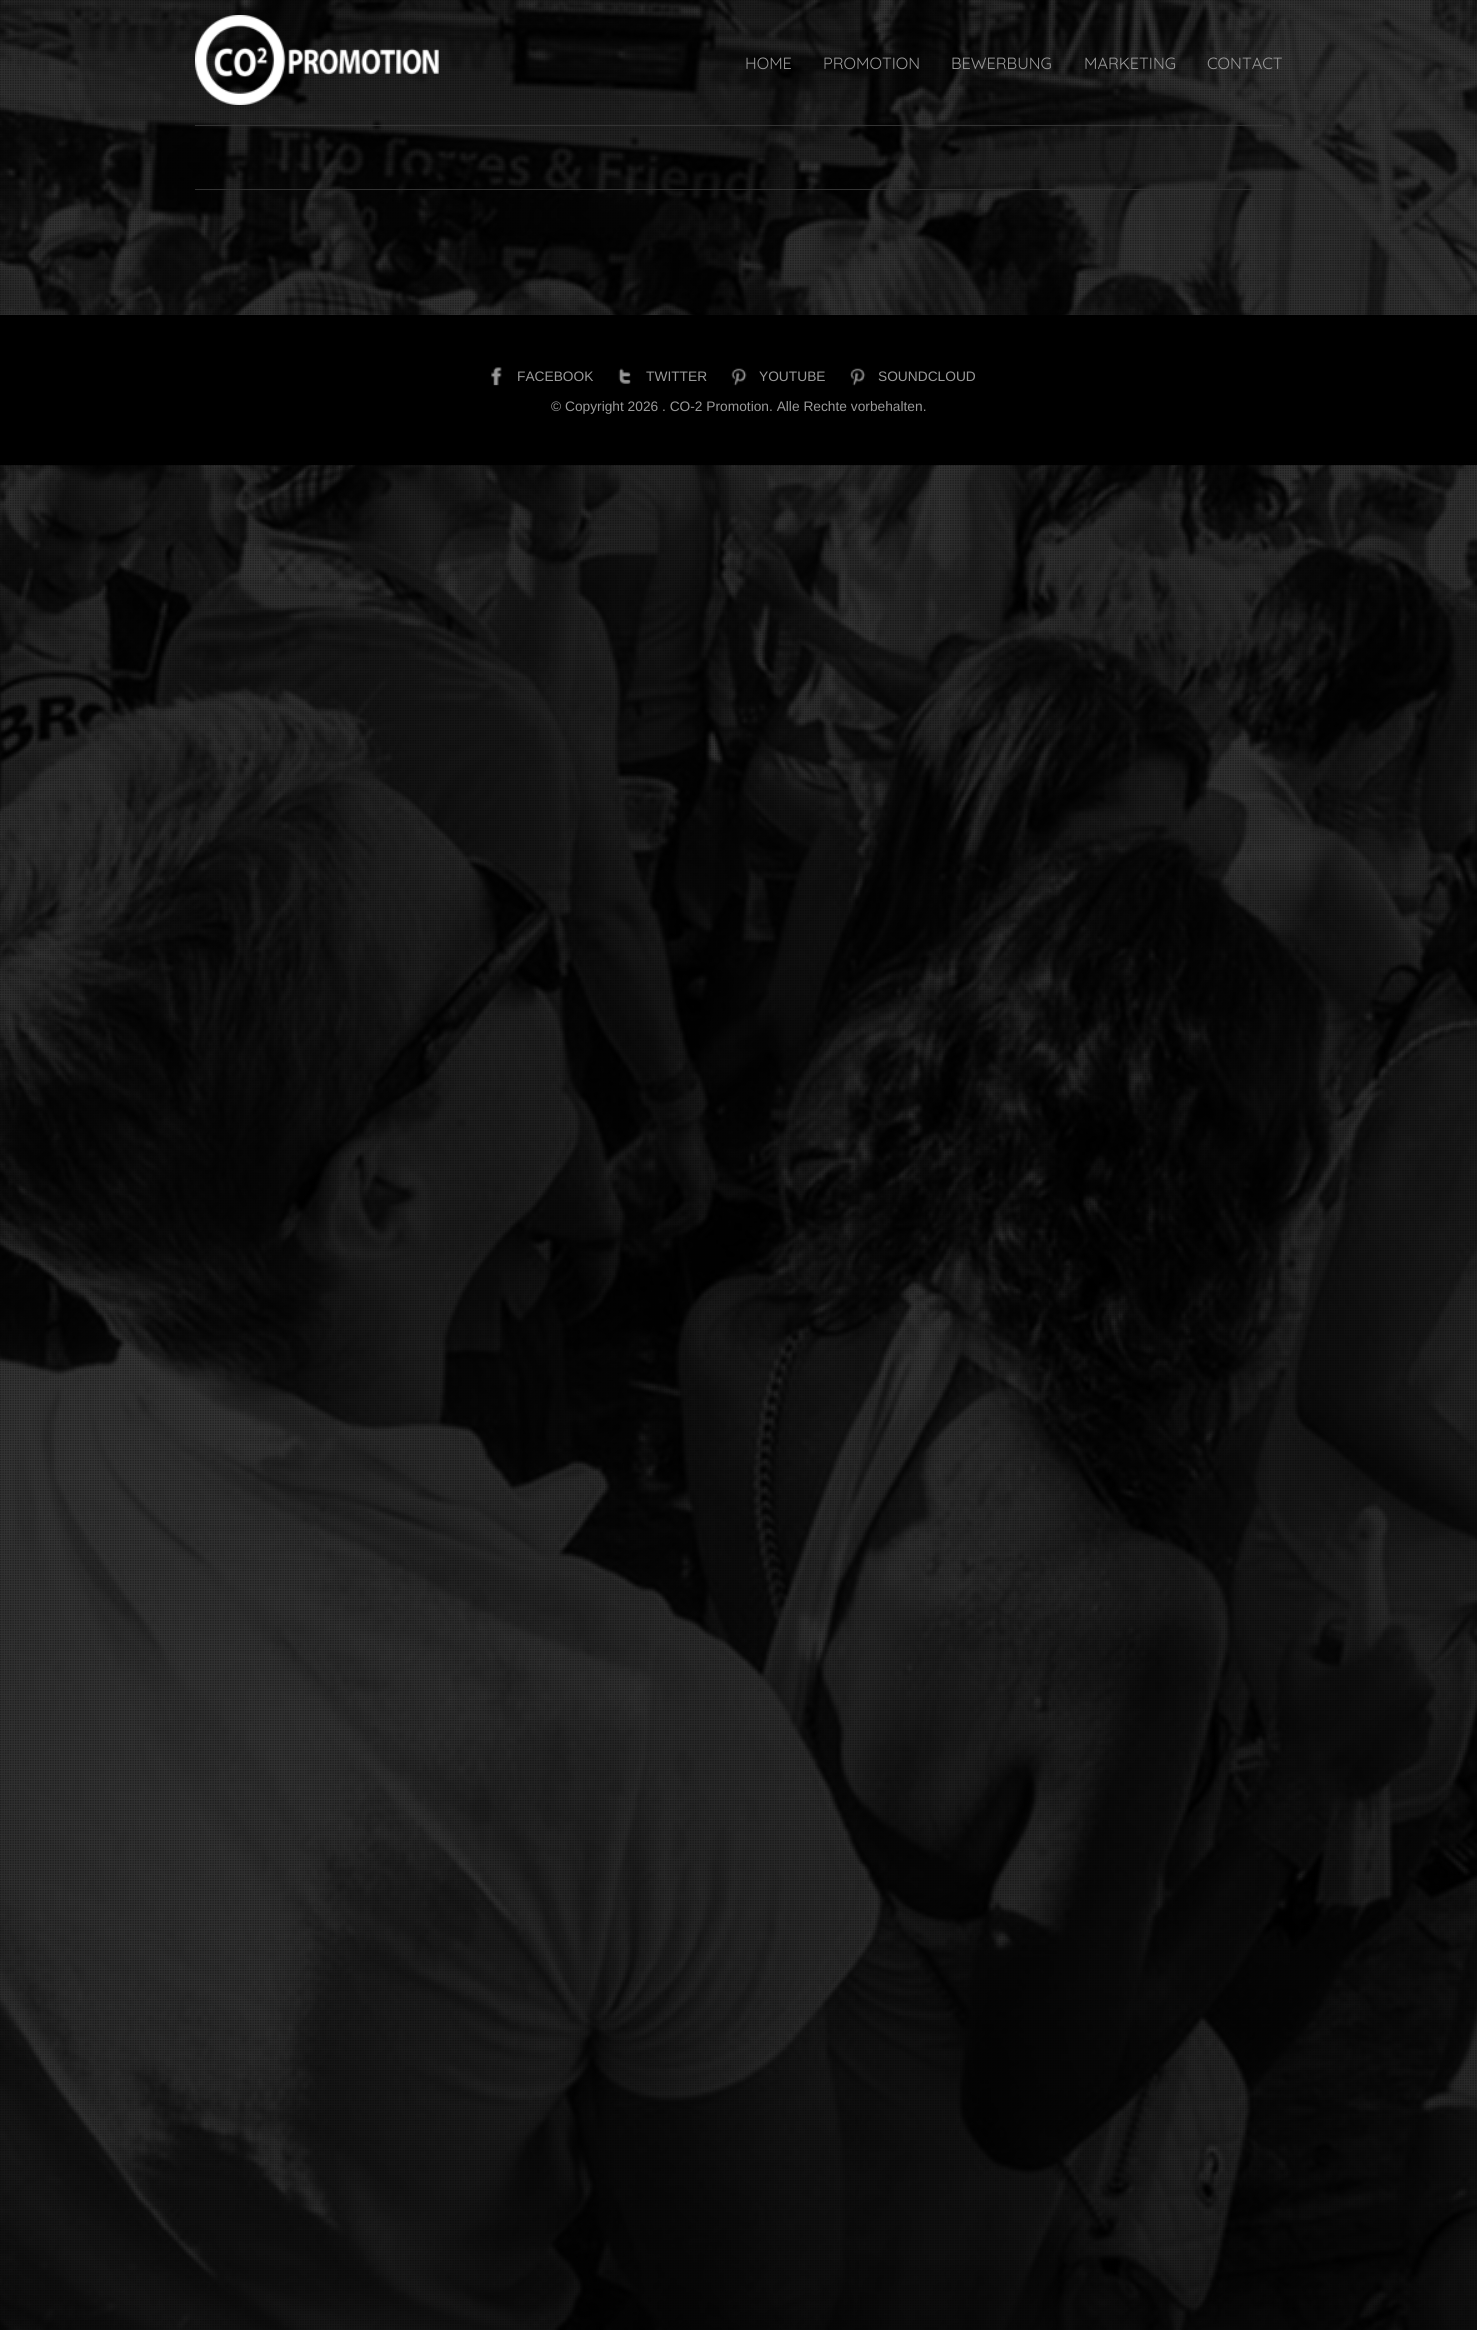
import math
import cairo

surface = cairo.ImageSurface(cairo.Format.RGB24, 1477, 2330)
ctx = cairo.Context(surface)
options = cairo.FontOptions()
options.set_hint_metrics(cairo.HintMetrics.OFF)
options.set_hint_style(cairo.HintStyle.NONE)
ctx.set_font_options(options)
ctx.set_miter_limit(4)


def ink(r, g, b):
    ctx.set_source_rgb(r / 255, g / 255, b / 255)


def write(x, y, s, family, size, color, bold=False, italic=False):
    ctx.select_font_face(family, cairo.FontSlant.ITALIC if italic else cairo.FontSlant.NORMAL, cairo.FontWeight.BOLD if bold else cairo.FontWeight.NORMAL)
    ctx.set_font_size(size)
    ink(*color)
    ctx.move_to(x, y)
    ctx.show_text(s)


def block(x, y, w, h, *color):
    ink(*color)
    ctx.rectangle(x, y, w, h)
    ctx.fill()


def paste(path, x, y, w, h):
    ctx.save()
    ctx.set_source_surface(cairo.ImageSurface.create_from_png(path), x, y)
    ctx.rectangle(x, y, w, h)
    ctx.fill()
    ctx.restore()


s1 = dict(family="Quicksand", size=16.25, color=(153, 153, 153))
s2 = dict(family="Liberation Sans", size=13.75, color=(153, 153, 153))

ink(0, 0, 0)
ctx.paint()
paste("pic1.png", 0, 0, 1477, 2330)
paste("pic2.png", 0, 0, 1477, 2329)
block(195, 125, 1088, 1, 51, 51, 51)
paste("pic3.png", 195, 15, 244, 90)
write(745, 69, "HOME", **s1)
write(823, 69, "PROMOTION", **s1)
write(951, 69, "BEWERBUNG", **s1)
write(1084, 69, "MARKETING", **s1)
write(1207, 69, "CONTACT", **s1)
block(195, 189, 1088, 1, 51, 51, 51)
block(0, 315, 1477, 150, 0, 0, 0)
paste("pic4.png", 491, 367, 11, 19)
write(517, 381, "FACEBOOK", **s2)
paste("pic5.png", 618, 368, 13, 16)
write(646, 381, "TWITTER", **s2)
paste("pic6.png", 731, 368, 16, 18)
write(759, 381, "YOUTUBE", **s2)
paste("pic7.png", 850, 368, 16, 18)
write(878, 381, "SOUNDCLOUD", **s2)
write(551, 411, "© Copyright 2026 . CO-2 Promotion. Alle Rechte vorbehalten.", **s2)
surface.write_to_png("screenshot.png")
